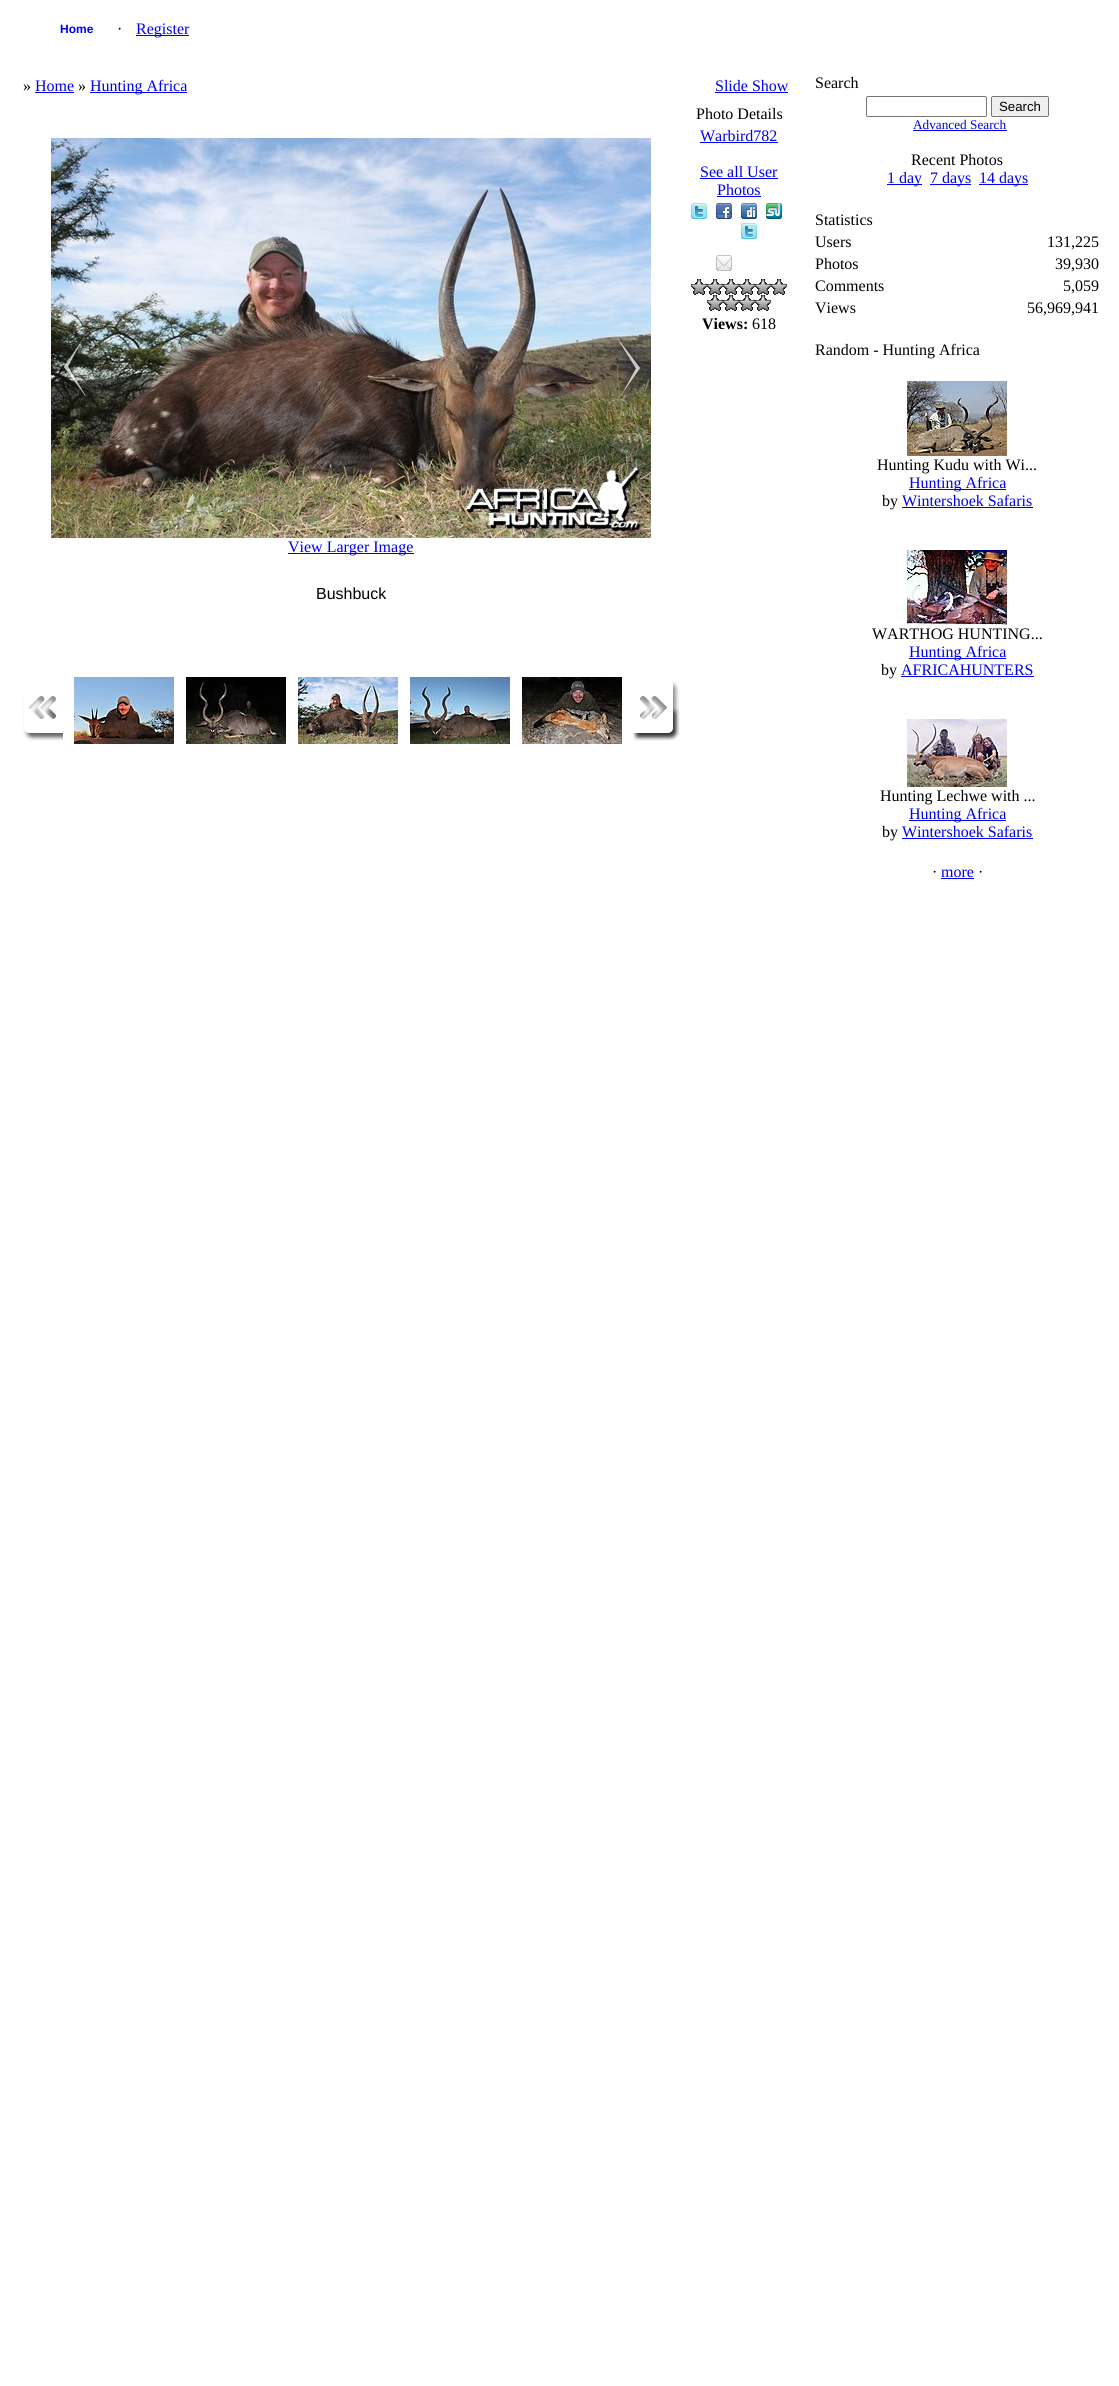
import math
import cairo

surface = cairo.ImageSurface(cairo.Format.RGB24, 1119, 2386)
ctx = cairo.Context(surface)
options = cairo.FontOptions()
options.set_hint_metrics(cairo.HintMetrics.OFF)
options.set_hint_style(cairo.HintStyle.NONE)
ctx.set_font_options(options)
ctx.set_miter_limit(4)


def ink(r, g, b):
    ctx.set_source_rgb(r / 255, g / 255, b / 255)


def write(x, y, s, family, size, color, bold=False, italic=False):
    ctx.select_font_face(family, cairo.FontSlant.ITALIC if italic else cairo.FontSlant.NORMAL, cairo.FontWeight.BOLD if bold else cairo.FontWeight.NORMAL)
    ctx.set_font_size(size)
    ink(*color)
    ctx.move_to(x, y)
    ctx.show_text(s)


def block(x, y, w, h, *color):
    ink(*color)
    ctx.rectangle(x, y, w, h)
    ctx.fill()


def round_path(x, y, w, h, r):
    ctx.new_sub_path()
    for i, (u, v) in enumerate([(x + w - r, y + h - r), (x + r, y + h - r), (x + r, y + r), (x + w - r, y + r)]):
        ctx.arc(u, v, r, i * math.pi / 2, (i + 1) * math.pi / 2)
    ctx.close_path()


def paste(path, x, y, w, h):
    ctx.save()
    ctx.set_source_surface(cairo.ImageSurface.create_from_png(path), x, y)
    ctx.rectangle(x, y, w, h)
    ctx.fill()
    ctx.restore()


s1 = dict(family="Liberation Sans", size=12, color=(0, 0, 238), bold=True)
s2 = dict(family="Liberation Serif", size=16, color=(0, 0, 0))
s3 = dict(family="Liberation Serif", size=16, color=(0, 0, 238))
s4 = dict(family="Liberation Serif", size=16, color=(0, 0, 0), bold=True)
s5 = dict(family="Liberation Sans", size=16, color=(0, 0, 0))
s6 = dict(family="Liberation Sans", size=13.25, color=(0, 0, 0))
s7 = dict(family="Liberation Serif", size=13.25, color=(0, 0, 238))

ink(255, 255, 255)
ctx.paint()
write(60, 33, "Home", **s1)
write(117, 34, "·", **s2)
block(136, 35, 53, 1, 0, 0, 238)
write(136, 34, "Register", **s3)
write(23, 91, "»", **s2)
write(35, 91, "Home", **s3)
block(35, 92, 39, 1, 0, 0, 238)
write(78, 91, "»", **s2)
block(90, 92, 97, 1, 0, 0, 238)
write(90, 91, "Hunting Africa", **s3)
write(715, 91, "Slide Show", **s3)
block(715, 92, 73, 1, 0, 0, 238)
write(696, 119, "Photo Details", **s2)
write(700, 141, "Warbird782", **s3)
block(700, 142, 78, 1, 0, 0, 238)
write(700, 177, "See all User", **s3)
block(700, 178, 78, 1, 0, 0, 238)
write(717, 195, "Photos", **s3)
block(717, 196, 44, 1, 0, 0, 238)
paste("pic1.png", 691, 203, 16, 16)
paste("pic2.png", 716, 203, 16, 16)
paste("pic3.png", 741, 203, 16, 16)
paste("pic4.png", 766, 203, 16, 16)
paste("pic1.png", 741, 223, 16, 16)
paste("pic5.png", 716, 255, 16, 16)
paste("pic6.png", 691, 279, 16, 16)
paste("pic6.png", 707, 279, 16, 16)
paste("pic6.png", 723, 279, 16, 16)
paste("pic6.png", 739, 279, 16, 16)
paste("pic6.png", 755, 279, 16, 16)
paste("pic6.png", 771, 279, 16, 16)
paste("pic6.png", 707, 295, 16, 16)
paste("pic6.png", 723, 295, 16, 16)
paste("pic6.png", 739, 295, 16, 16)
paste("pic6.png", 755, 295, 16, 16)
write(702, 329, "Views:", **s4)
write(752, 329, "618", **s2)
paste("pic7.png", 51, 138, 600, 400)
paste("pic8.png", 64, 338, 22, 58)
paste("pic9.png", 616, 338, 24, 59)
block(288, 553, 126, 1, 0, 0, 238)
write(288, 552, "View Larger Image", **s3)
write(316, 599, "Bushbuck", **s5)
paste("pic10.png", 23, 696, 40, 45)
paste("pic11.png", 74, 677, 100, 67)
paste("pic12.png", 186, 677, 100, 67)
paste("pic13.png", 298, 677, 100, 67)
paste("pic14.png", 410, 677, 100, 67)
paste("pic15.png", 522, 677, 100, 67)
paste("pic16.png", 633, 681, 47, 60)
write(815, 88, "Search", **s2)
round_path(866.5, 96.5, 120, 20, 1.5)
ink(118, 118, 118)
ctx.set_line_width(1)
ctx.stroke()
ink(239, 239, 239)
round_path(991.5, 96.5, 57, 20, 1.5)
ctx.fill_preserve()
ink(118, 118, 118)
ctx.stroke()
write(999, 111, "Search", **s6)
write(913, 129, "Advanced Search", **s7)
block(913, 130, 94, 1, 0, 0, 238)
write(911, 165, "Recent Photos", **s2)
block(887, 184, 35, 1, 0, 0, 238)
write(887, 183, "1 day", **s3)
block(930, 184, 41, 1, 0, 0, 238)
write(930, 183, "7 days", **s3)
block(979, 184, 49, 1, 0, 0, 238)
write(979, 183, "14 days", **s3)
write(815, 225, "Statistics", **s2)
write(815, 247, "Users", **s2)
write(1047, 247, "131,225", **s2)
write(815, 269, "Photos", **s2)
write(1055, 269, "39,930", **s2)
write(815, 291, "Comments", **s2)
write(1063, 291, "5,059", **s2)
write(815, 313, "Views", **s2)
write(1027, 313, "56,969,941", **s2)
write(815, 355, "Random - Hunting Africa", **s2)
paste("pic17.png", 907, 381, 100, 75)
write(877, 470, "Hunting Kudu with Wi...", **s2)
block(909, 489, 97, 1, 0, 0, 238)
write(909, 488, "Hunting Africa", **s3)
write(882, 506, "by", **s2)
block(902, 507, 131, 1, 0, 0, 238)
write(902, 506, "Wintershoek Safaris", **s3)
paste("pic18.png", 907, 550, 100, 75)
write(872, 639, "WARTHOG HUNTING...", **s2)
block(909, 658, 97, 1, 0, 0, 238)
write(909, 657, "Hunting Africa", **s3)
write(881, 675, "by", **s2)
write(901, 675, "AFRICAHUNTERS", **s3)
block(901, 676, 133, 1, 0, 0, 238)
paste("pic19.png", 907, 719, 100, 68)
write(880, 801, "Hunting Lechwe with ...", **s2)
block(909, 820, 97, 1, 0, 0, 238)
write(909, 819, "Hunting Africa", **s3)
write(882, 837, "by", **s2)
block(902, 838, 131, 1, 0, 0, 238)
write(902, 837, "Wintershoek Safaris", **s3)
write(932, 877, "·", **s2)
write(941, 877, "more", **s3)
block(941, 878, 33, 1, 0, 0, 238)
write(978, 877, "·", **s2)
surface.write_to_png("screenshot.png")
